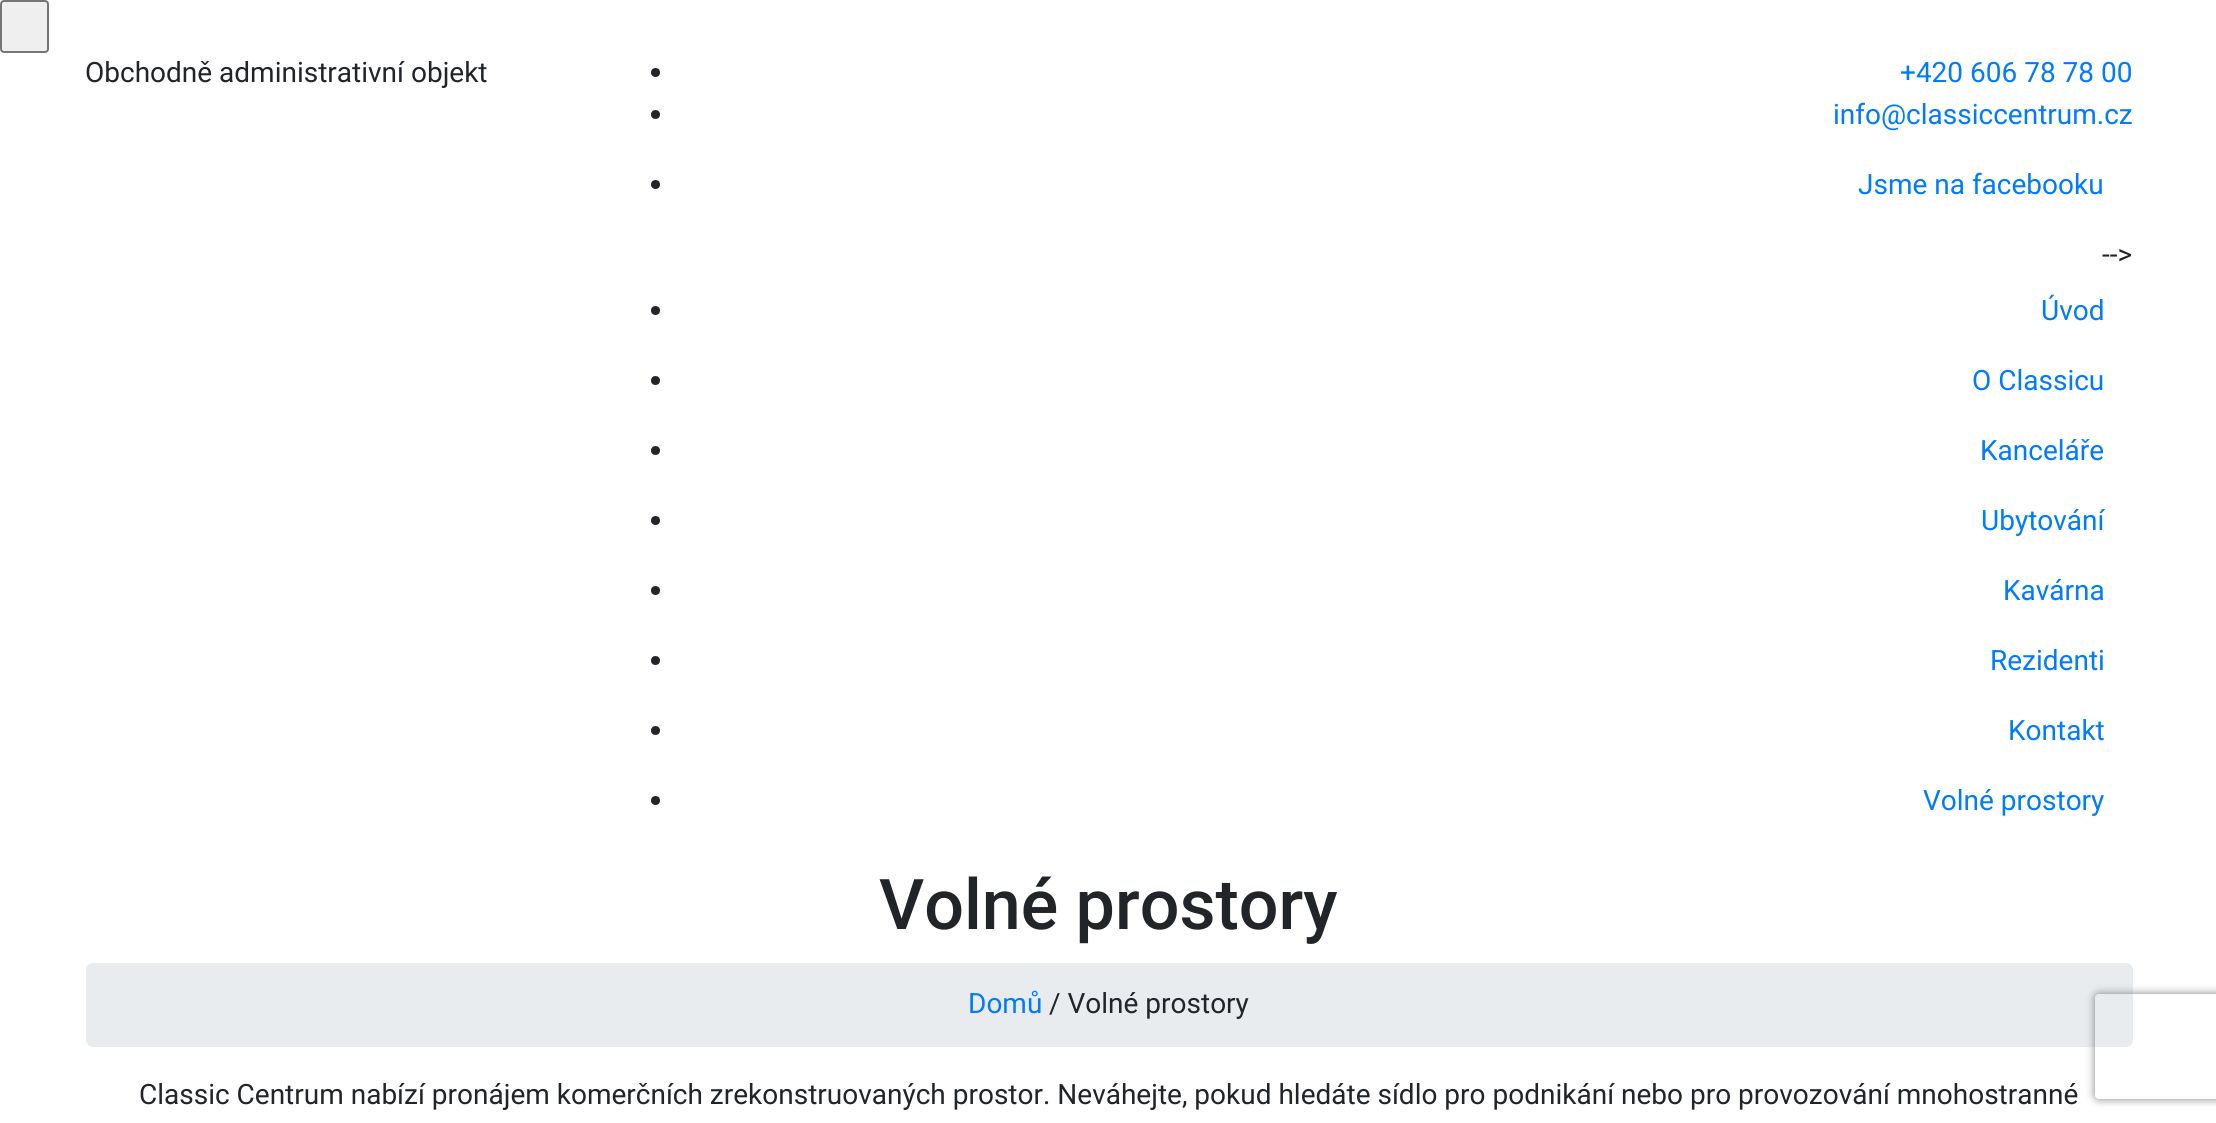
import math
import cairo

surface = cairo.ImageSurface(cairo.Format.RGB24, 2216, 1123)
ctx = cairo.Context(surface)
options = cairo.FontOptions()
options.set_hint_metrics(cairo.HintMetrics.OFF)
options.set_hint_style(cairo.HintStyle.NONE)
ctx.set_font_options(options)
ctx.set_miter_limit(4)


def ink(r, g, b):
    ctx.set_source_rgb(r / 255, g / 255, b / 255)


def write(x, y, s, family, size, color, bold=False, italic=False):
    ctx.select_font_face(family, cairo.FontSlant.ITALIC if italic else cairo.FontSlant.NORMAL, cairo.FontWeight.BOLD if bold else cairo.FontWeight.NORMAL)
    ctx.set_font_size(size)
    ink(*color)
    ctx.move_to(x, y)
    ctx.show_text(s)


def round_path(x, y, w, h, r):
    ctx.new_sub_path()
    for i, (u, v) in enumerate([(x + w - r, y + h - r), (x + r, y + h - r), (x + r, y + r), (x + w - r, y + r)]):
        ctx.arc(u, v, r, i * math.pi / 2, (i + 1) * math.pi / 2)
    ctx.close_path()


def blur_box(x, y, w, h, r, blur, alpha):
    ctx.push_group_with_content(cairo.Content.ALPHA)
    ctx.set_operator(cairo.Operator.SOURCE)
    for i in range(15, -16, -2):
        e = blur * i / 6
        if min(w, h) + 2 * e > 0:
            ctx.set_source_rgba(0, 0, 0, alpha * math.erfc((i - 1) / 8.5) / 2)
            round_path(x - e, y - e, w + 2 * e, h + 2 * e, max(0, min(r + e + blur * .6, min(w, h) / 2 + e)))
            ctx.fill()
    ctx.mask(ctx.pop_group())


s1 = dict(family="Roboto", size=28, color=(33, 37, 41))
s2 = dict(family="Roboto", size=28, color=(0, 123, 255))
s3 = dict(family="Roboto Medium", size=70, color=(33, 37, 41))

ink(255, 255, 255)
ctx.paint()
ink(239, 239, 239)
round_path(1, 1, 47, 51, 3)
ctx.fill_preserve()
ink(118, 118, 118)
ctx.stroke()
write(85, 82, "Obchodně administrativní objekt", **s1)
ctx.new_path()
ctx.arc(655.5, 72.5, 4.5, 0, 2 * math.pi)
ctx.fill()
write(1900, 82, "+420 606 78 78 00", **s2)
ink(33, 37, 41)
ctx.new_path()
ctx.arc(655.5, 114.5, 4.5, 0, 2 * math.pi)
ctx.fill()
write(1833, 124, "info@classiccentrum.cz", **s2)
ink(33, 37, 41)
ctx.new_path()
ctx.arc(655.5, 184.5, 4.5, 0, 2 * math.pi)
ctx.fill()
write(1858, 194, "Jsme na facebooku", **s2)
write(2102, 264, "-->", **s1)
ctx.new_path()
ctx.arc(655.5, 310.5, 4.5, 0, 2 * math.pi)
ctx.fill()
write(2041, 320, "Úvod", **s2)
ink(33, 37, 41)
ctx.new_path()
ctx.arc(655.5, 380.5, 4.5, 0, 2 * math.pi)
ctx.fill()
write(1972, 390, "O Classicu", **s2)
ink(33, 37, 41)
ctx.new_path()
ctx.arc(655.5, 450.5, 4.5, 0, 2 * math.pi)
ctx.fill()
write(1980, 460, "Kanceláře", **s2)
ink(33, 37, 41)
ctx.new_path()
ctx.arc(655.5, 520.5, 4.5, 0, 2 * math.pi)
ctx.fill()
write(1981, 530, "Ubytování", **s2)
ink(33, 37, 41)
ctx.new_path()
ctx.arc(655.5, 590.5, 4.5, 0, 2 * math.pi)
ctx.fill()
write(2003, 600, "Kavárna", **s2)
ink(33, 37, 41)
ctx.new_path()
ctx.arc(655.5, 660.5, 4.5, 0, 2 * math.pi)
ctx.fill()
write(1990, 670, "Rezidenti", **s2)
ink(33, 37, 41)
ctx.new_path()
ctx.arc(655.5, 730.5, 4.5, 0, 2 * math.pi)
ctx.fill()
write(2008, 740, "Kontakt", **s2)
ink(33, 37, 41)
ctx.new_path()
ctx.arc(655.5, 800.5, 4.5, 0, 2 * math.pi)
ctx.fill()
write(1923, 810, "Volné prostory", **s2)
write(879, 929, "Volné prostory", **s3)
ink(233, 236, 239)
round_path(86, 963, 2047, 84, 7)
ctx.fill()
write(968, 1013, "Domů", **s2)
write(1049, 1013, "/ Volné prostory", **s1)
write(139, 1104, "Classic Centrum nabízí pronájem komerčních zrekonstruovaných prostor. Neváhejte, pokud hledáte sídlo pro podnikání nebo pro provozování mnohostranné", **s1)
ctx.save()
ctx.set_fill_rule(cairo.FillRule.EVEN_ODD)
ctx.new_path()
ctx.move_to(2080, 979)
ctx.line_to(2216, 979)
ctx.line_to(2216, 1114)
ctx.line_to(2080, 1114)
ctx.close_path()
ctx.move_to(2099, 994)
ctx.line_to(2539, 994)
ctx.curve_to(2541, 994, 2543, 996, 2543, 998)
ctx.line_to(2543, 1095)
ctx.curve_to(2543, 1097, 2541, 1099, 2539, 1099)
ctx.line_to(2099, 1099)
ctx.curve_to(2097, 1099, 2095, 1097, 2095, 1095)
ctx.line_to(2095, 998)
ctx.curve_to(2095, 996, 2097, 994, 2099, 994)
ctx.close_path()
ctx.clip()
ink(128, 128, 128)
blur_box(2095, 994, 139, 105, 4, 4.5, 1)
ctx.restore()
surface.write_to_png("screenshot.png")
